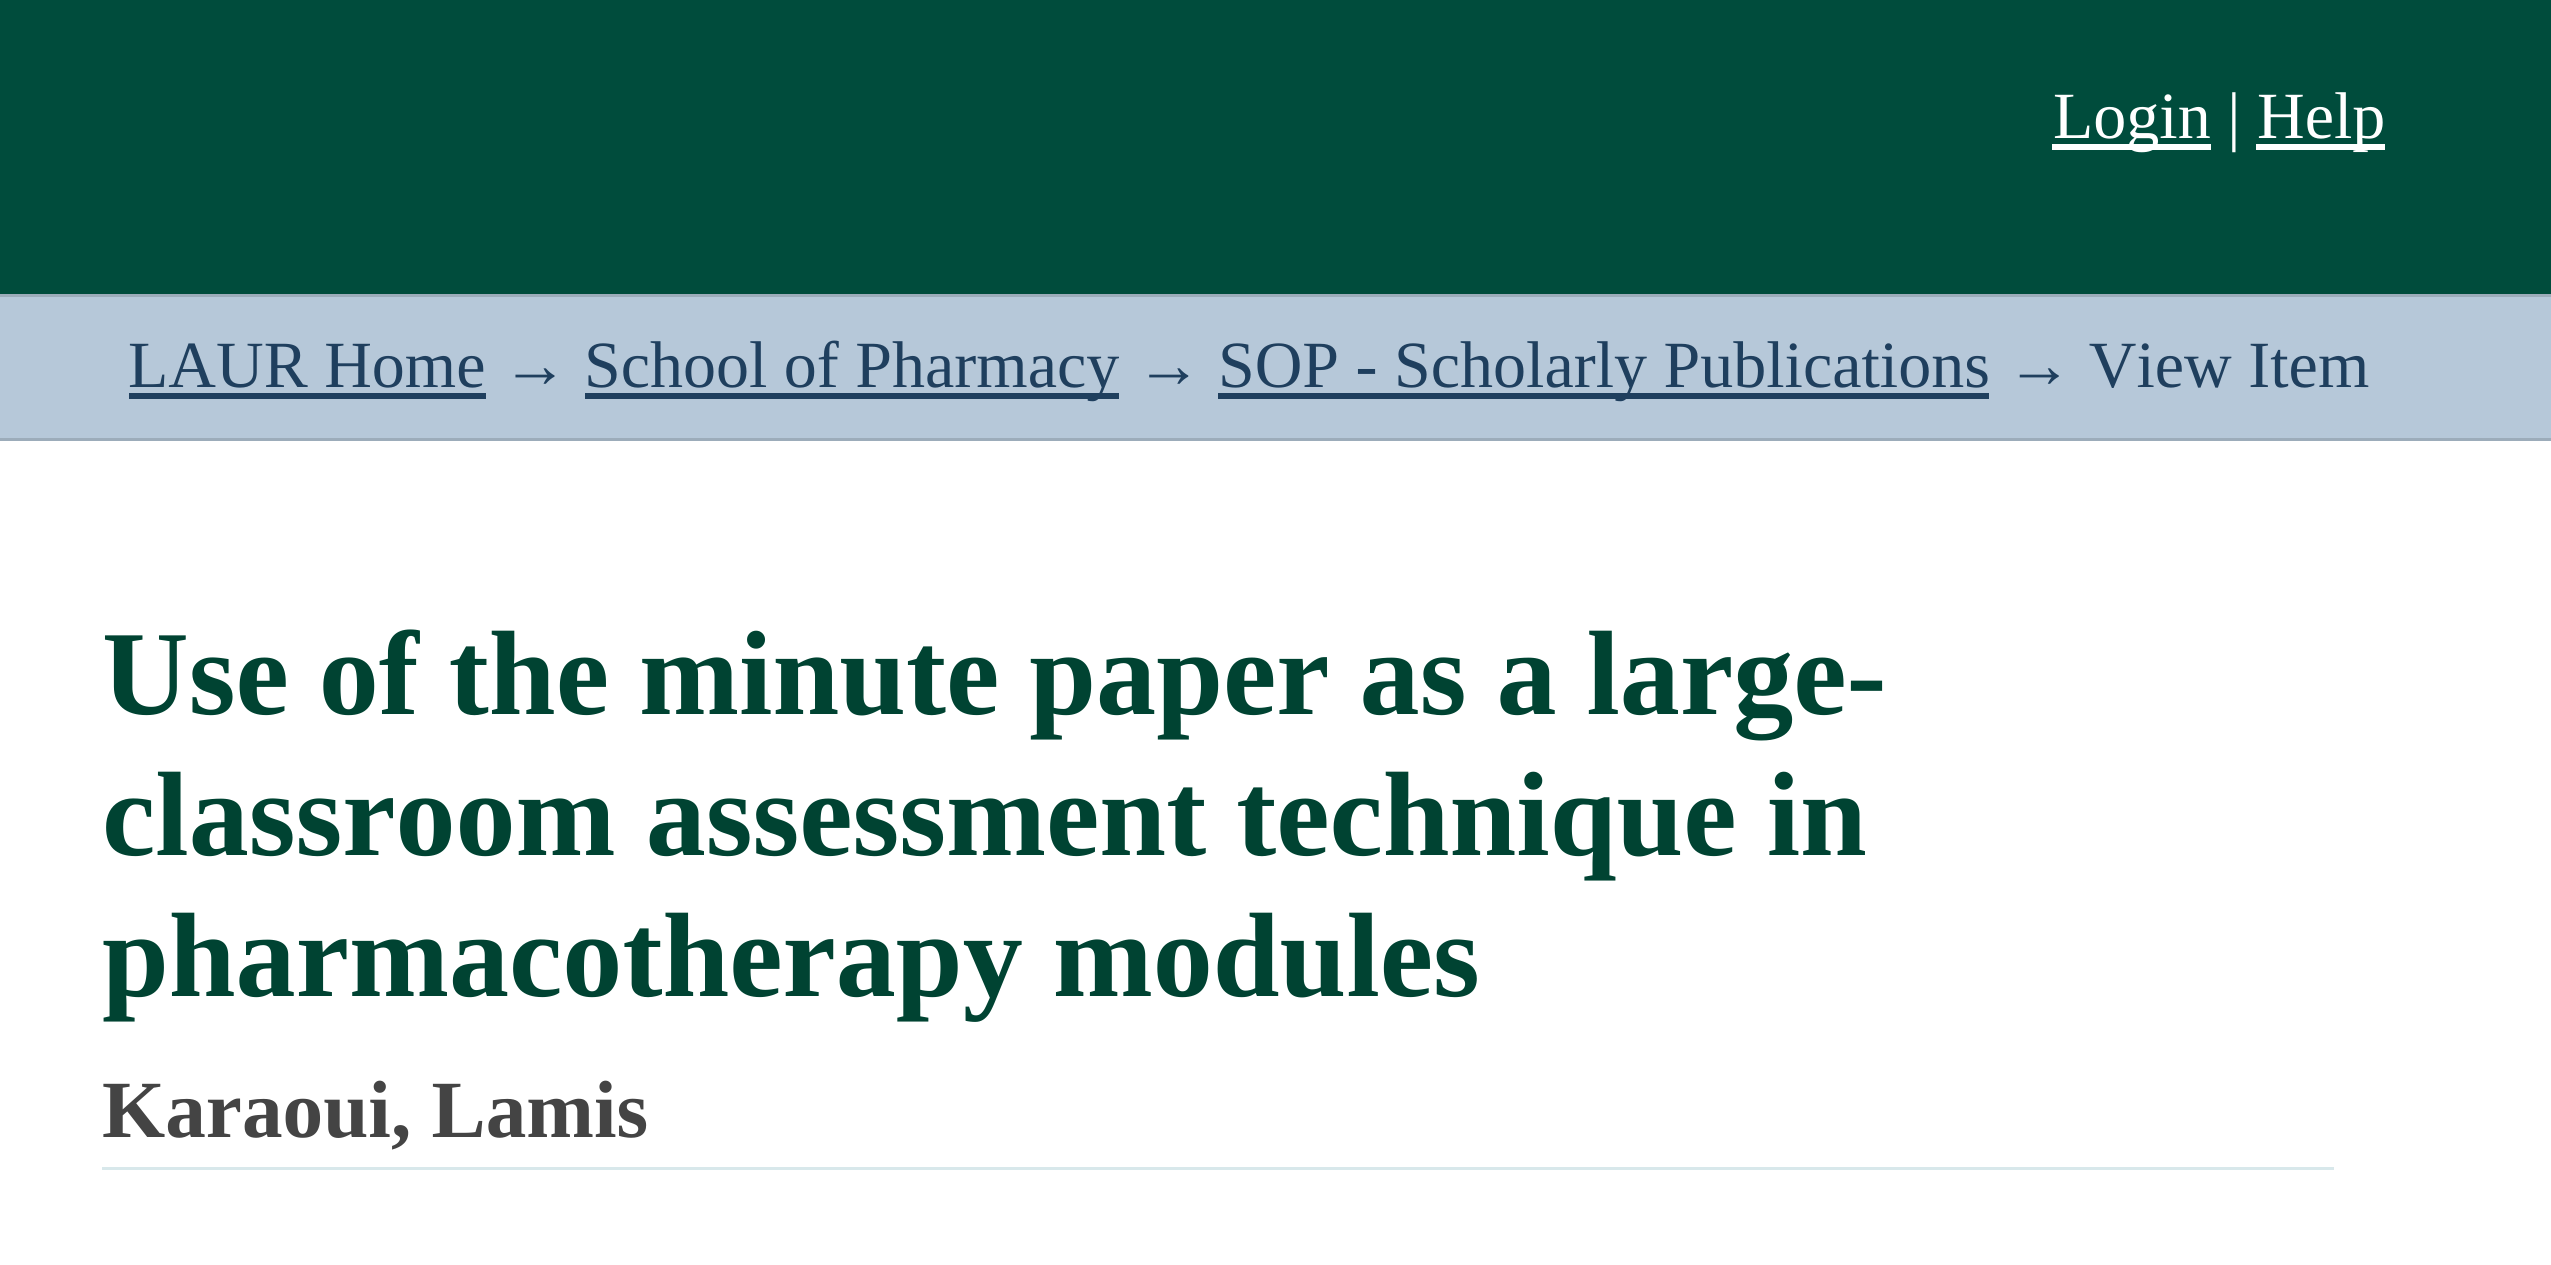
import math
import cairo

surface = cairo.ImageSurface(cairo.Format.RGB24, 2551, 1265)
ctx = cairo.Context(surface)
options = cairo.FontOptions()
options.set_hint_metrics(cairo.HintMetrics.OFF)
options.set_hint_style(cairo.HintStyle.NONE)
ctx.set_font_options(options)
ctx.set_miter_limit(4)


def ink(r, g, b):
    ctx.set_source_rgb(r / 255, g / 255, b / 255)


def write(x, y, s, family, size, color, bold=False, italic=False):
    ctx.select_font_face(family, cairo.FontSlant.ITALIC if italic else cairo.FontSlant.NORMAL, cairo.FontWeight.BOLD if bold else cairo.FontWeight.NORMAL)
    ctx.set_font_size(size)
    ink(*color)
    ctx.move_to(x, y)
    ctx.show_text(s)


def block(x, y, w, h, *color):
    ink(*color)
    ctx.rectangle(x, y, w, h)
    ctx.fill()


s1 = dict(family="Liberation Serif", size=66, color=(255, 255, 255))
s2 = dict(family="Liberation Serif", size=66, color=(31, 63, 94))
s3 = dict(family="Liberation Serif", size=120.1, color=(0, 67, 50), bold=True)
s4 = dict(family="Liberation Serif", size=81.25, color=(68, 68, 68), bold=True)

ink(255, 255, 255)
ctx.paint()
block(0, 0, 2551, 294, 0, 76, 60)
block(2052, 144, 159, 6, 255, 255, 255)
write(2053, 138, "Login |", **s1)
block(2256, 144, 129, 6, 255, 255, 255)
write(2257, 138, "Help", **s1)
block(0, 297, 2551, 141, 182, 200, 217)
block(0, 294, 2551, 3, 156, 172, 186)
block(0, 438, 2551, 3, 156, 172, 186)
write(128, 387, "LAUR Home →", **s2)
block(129, 393, 357, 6, 31, 63, 94)
block(585, 393, 534, 6, 31, 63, 94)
write(584, 387, "School of Pharmacy →", **s2)
block(1218, 393, 771, 6, 31, 63, 94)
write(1218, 387, "SOP - Scholarly Publications → View Item", **s2)
write(102, 714, "Use of the minute paper as a large-", **s3)
write(102, 855, "classroom assessment technique in", **s3)
write(102, 996, "pharmacotherapy modules", **s3)
block(102, 1167, 2232, 3, 216, 232, 235)
write(102, 1137, "Karaoui, Lamis", **s4)
surface.write_to_png("screenshot.png")
